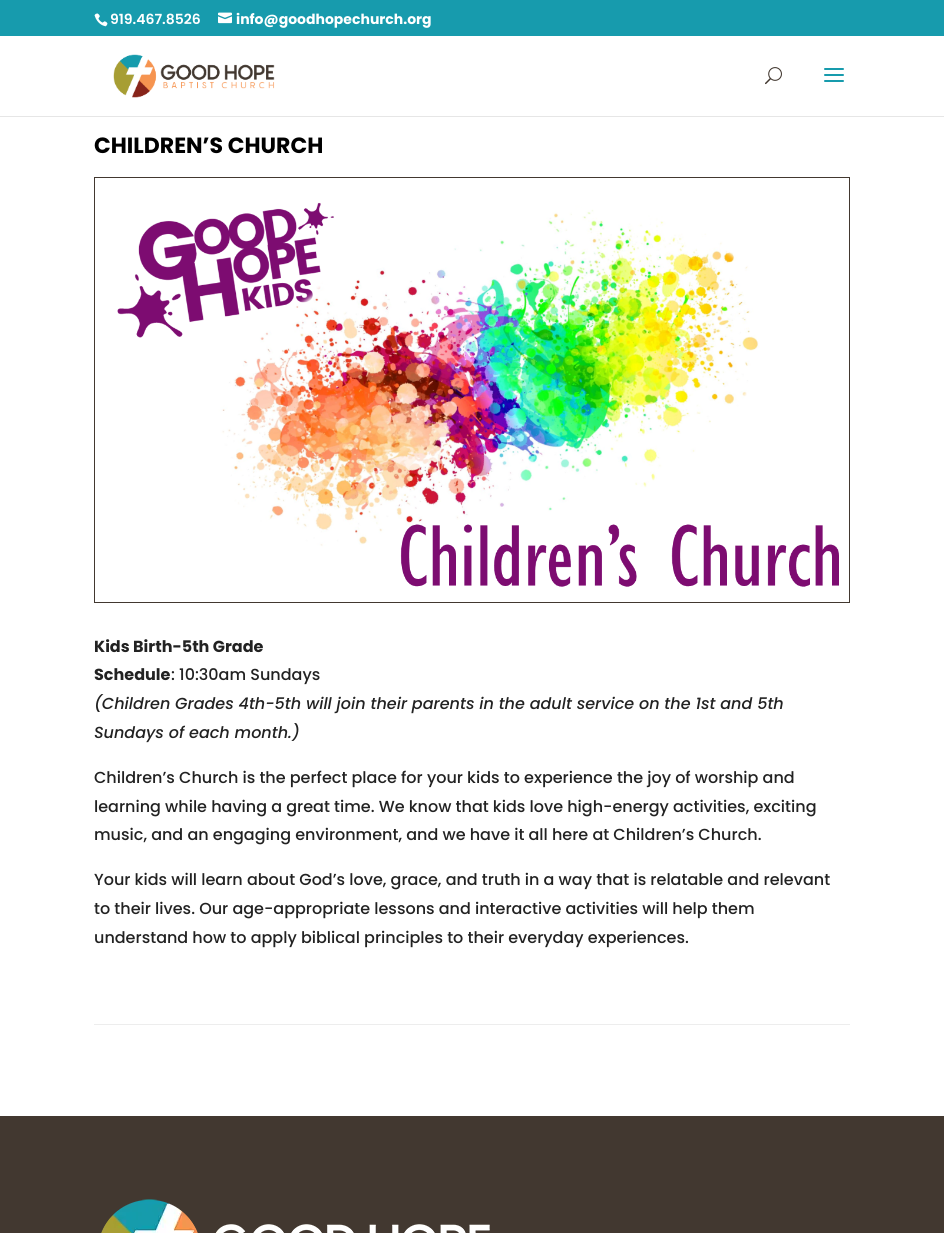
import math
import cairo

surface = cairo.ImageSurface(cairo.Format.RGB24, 944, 1233)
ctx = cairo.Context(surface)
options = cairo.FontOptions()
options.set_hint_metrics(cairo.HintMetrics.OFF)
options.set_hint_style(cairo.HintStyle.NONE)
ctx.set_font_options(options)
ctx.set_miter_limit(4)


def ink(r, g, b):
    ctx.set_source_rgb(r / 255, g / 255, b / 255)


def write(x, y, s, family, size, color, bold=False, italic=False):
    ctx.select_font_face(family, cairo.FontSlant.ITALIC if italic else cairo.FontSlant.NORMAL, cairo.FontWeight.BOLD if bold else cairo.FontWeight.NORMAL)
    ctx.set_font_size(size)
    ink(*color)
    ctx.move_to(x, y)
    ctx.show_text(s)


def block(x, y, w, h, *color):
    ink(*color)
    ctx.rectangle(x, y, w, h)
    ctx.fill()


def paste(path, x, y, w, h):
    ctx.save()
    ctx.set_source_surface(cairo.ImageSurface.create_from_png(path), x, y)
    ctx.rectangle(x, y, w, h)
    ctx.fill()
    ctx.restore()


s1 = dict(family="Poppins SemiBold", size=14, color=(255, 255, 255))
s2 = dict(family="Poppins", size=14, color=(255, 255, 255), bold=True)
s3 = dict(family="Poppins", size=22, color=(0, 0, 0), bold=True)
s4 = dict(family="Poppins", size=16, color=(34, 34, 34), bold=True)
s5 = dict(family="Poppins Medium", size=16, color=(34, 34, 34))
s6 = dict(family="Poppins Medium", size=16, color=(34, 34, 34), italic=True)

ink(255, 255, 255)
ctx.paint()
block(0, 0, 944, 36, 23, 155, 173)
paste("pic1.png", 94, 13, 14, 14)
write(110, 24, "919.467.8526", **s1)
paste("pic2.png", 218, 12, 14, 12)
write(236, 24, "info@goodhopechurch.org", **s2)
block(0, 116, 944, 1, 230, 230, 230)
paste("pic3.png", 113, 54, 162, 44)
paste("pic4.png", 765, 67, 17, 18)
paste("pic5.png", 824, 68, 20, 14)
write(94, 153, "CHILDREN’S CHURCH", **s3)
ctx.rectangle(94.5, 177.5, 755, 425)
ink(66, 56, 48)
ctx.set_line_width(1)
ctx.stroke()
paste("pic6.png", 117, 202, 722, 385)
write(94, 652, "Kids Birth-5th Grade", **s4)
write(94, 680, "Schedule", **s4)
write(171, 680, ": 10:30am Sundays", **s5)
write(94, 709, "(Children Grades 4th-5th will join their parents in the adult service on the 1st and 5th", **s6)
write(94, 738, "Sundays of each month.)", **s6)
write(94, 783, "Children’s Church is the perfect place for your kids to experience the joy of worship and", **s5)
write(94, 812, "learning while having a great time. We know that kids love high-energy activities, exciting", **s5)
write(94, 840, "music, and an engaging environment, and we have it all here at Children’s Church.", **s5)
write(94, 885, "Your kids will learn about God’s love, grace, and truth in a way that is relatable and relevant", **s5)
write(94, 914, "to their lives. Our age-appropriate lessons and interactive activities will help them", **s5)
write(94, 943, "understand how to apply biblical principles to their everyday experiences.", **s5)
block(94, 1024, 756, 1, 237, 237, 237)
block(0, 1116, 944, 117, 66, 56, 48)
paste("pic7.png", 101, 1199, 389, 34)
surface.write_to_png("screenshot.png")
